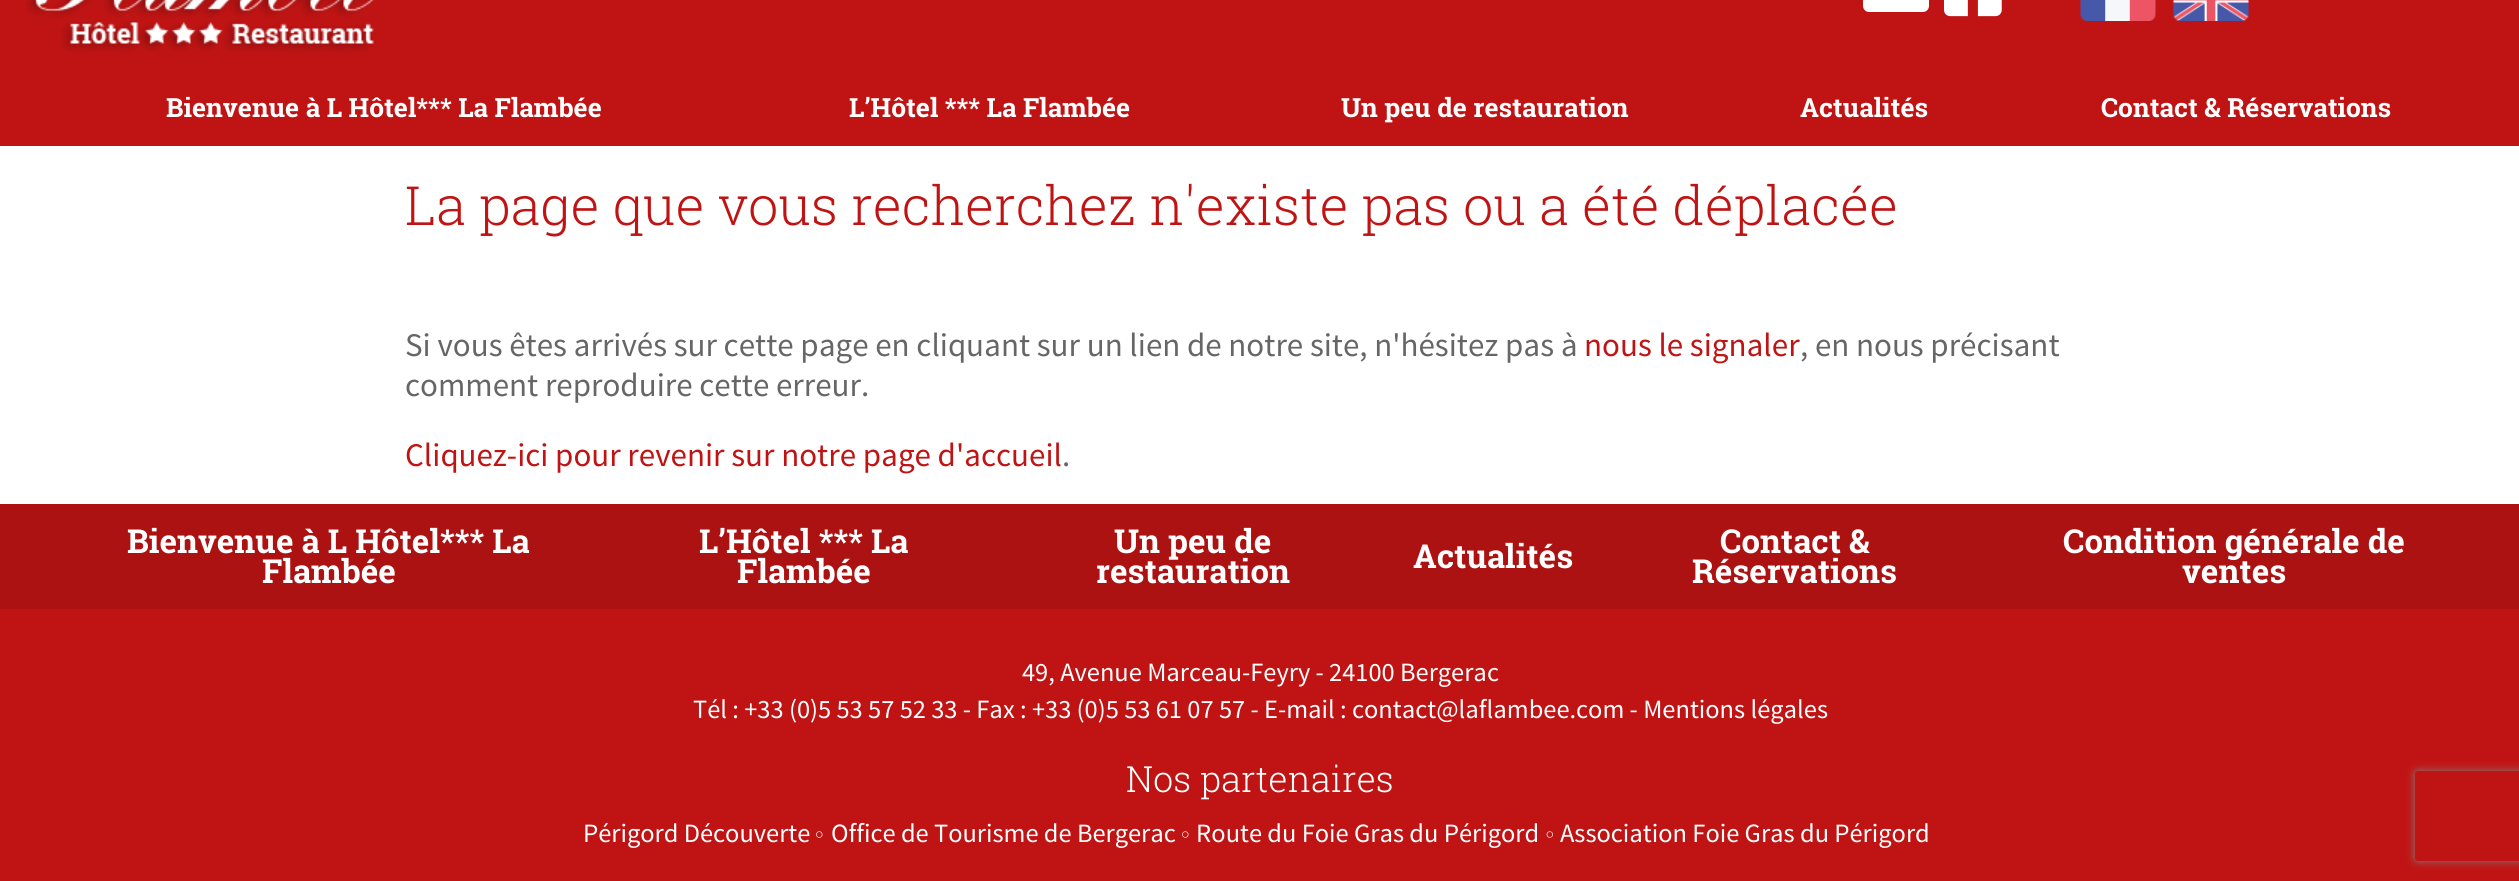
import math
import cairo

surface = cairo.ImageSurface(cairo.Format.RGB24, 2519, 881)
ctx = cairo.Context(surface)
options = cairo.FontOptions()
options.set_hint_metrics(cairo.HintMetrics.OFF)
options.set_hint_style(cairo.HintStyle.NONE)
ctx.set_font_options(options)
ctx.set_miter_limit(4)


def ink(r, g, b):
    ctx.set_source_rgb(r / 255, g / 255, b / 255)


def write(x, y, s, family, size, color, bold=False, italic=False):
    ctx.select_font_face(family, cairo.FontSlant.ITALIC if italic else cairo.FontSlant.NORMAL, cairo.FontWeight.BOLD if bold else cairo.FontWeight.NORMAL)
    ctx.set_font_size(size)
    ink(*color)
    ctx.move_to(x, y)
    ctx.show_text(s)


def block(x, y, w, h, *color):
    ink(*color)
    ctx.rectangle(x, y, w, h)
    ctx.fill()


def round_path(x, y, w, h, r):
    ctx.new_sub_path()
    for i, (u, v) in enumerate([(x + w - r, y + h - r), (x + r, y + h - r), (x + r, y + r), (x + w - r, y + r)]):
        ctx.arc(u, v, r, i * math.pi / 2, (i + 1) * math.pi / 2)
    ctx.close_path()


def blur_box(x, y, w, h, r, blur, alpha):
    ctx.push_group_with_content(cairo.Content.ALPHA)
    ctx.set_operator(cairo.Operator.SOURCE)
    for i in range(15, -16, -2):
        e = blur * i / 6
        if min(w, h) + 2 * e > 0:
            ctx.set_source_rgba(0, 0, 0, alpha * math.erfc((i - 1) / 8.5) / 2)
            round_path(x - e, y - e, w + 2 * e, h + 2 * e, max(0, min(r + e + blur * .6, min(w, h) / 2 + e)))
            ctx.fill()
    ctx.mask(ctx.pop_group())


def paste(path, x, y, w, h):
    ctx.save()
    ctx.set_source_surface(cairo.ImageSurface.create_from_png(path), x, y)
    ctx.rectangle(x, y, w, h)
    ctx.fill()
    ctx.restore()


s1 = dict(family="Roboto Slab", size=26.4, color=(255, 255, 255), bold=True)
s2 = dict(family="Roboto Slab Light", size=54, color=(192, 20, 20))
s3 = dict(family="Source Sans Pro", size=33, color=(102, 102, 102))
s4 = dict(family="Source Sans Pro", size=33, color=(192, 20, 20))
s5 = dict(family="Roboto Slab", size=33, color=(255, 255, 255), bold=True)
s6 = dict(family="Source Sans Pro", size=26.4, color=(255, 255, 255))
s7 = dict(family="Roboto Slab Light", size=36, color=(255, 255, 255))

ink(255, 255, 255)
ctx.paint()
block(0, 0, 2519, 146, 192, 20, 20)
paste("pic1.png", 26, 0, 349, 53)
paste("pic2.png", 1863, 0, 66, 12)
paste("pic3.png", 1944, 0, 58, 17)
paste("pic4.png", 2080, 0, 76, 21)
paste("pic5.png", 2173, 0, 76, 21)
write(166, 117, "Bienvenue à L Hôtel*** La Flambée", **s1)
write(849, 117, "L’Hôtel *** La Flambée", **s1)
write(1341, 117, "Un peu de restauration", **s1)
write(1800, 117, "Actualités", **s1)
write(2101, 117, "Contact & Réservations", **s1)
write(405, 225, "La page que vous recherchez n'existe pas ou a été déplacée", **s2)
write(405, 356, "Si vous êtes arrivés sur cette page en cliquant sur un lien de notre site, n'hésitez pas à", **s3)
write(1584, 356, "nous le signaler", **s4)
write(1800, 356, ", en nous précisant", **s3)
write(405, 396, "comment reproduire cette erreur.", **s3)
write(405, 466, "Cliquez-ici pour revenir sur notre page d'accueil", **s4)
write(1062, 466, ".", **s3)
block(0, 609, 2519, 272, 192, 20, 20)
block(0, 504, 2519, 105, 173, 18, 18)
write(127, 553, "Bienvenue à L Hôtel*** La", **s5)
write(262, 583, "Flambée", **s5)
write(699, 553, "L’Hôtel *** La", **s5)
write(737, 583, "Flambée", **s5)
write(1114, 553, "Un peu de", **s5)
write(1096, 583, "restauration", **s5)
write(1413, 568, "Actualités", **s5)
write(1720, 553, "Contact &", **s5)
write(1692, 583, "Réservations", **s5)
write(2063, 553, "Condition générale de", **s5)
write(2182, 583, "ventes", **s5)
write(1022, 681, "49, Avenue Marceau-Feyry - 24100 Bergerac", **s6)
write(693, 718, "Tél : +33 (0)5 53 57 52 33 - Fax : +33 (0)5 53 61 07 57 - E-mail : contact@laflambee.com - Mentions légales", **s6)
write(1126, 792, "Nos partenaires", **s7)
write(583, 842, "Périgord Découverte", **s6)
paste("pic6.png", 816, 831, 7, 7)
write(831, 842, "Office de Tourisme de Bergerac", **s6)
paste("pic6.png", 1182, 831, 7, 7)
write(1196, 842, "Route du Foie Gras du Périgord", **s6)
paste("pic7.png", 1546, 831, 7, 7)
write(1560, 842, "Association Foie Gras du Périgord", **s6)
ctx.save()
ctx.set_fill_rule(cairo.FillRule.EVEN_ODD)
ctx.new_path()
ctx.move_to(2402, 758)
ctx.line_to(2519, 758)
ctx.line_to(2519, 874)
ctx.line_to(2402, 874)
ctx.close_path()
ctx.move_to(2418, 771)
ctx.line_to(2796, 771)
ctx.curve_to(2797.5, 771, 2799, 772.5, 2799, 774)
ctx.line_to(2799, 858)
ctx.curve_to(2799, 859.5, 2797.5, 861, 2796, 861)
ctx.line_to(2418, 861)
ctx.curve_to(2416.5, 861, 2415, 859.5, 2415, 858)
ctx.line_to(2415, 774)
ctx.curve_to(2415, 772.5, 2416.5, 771, 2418, 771)
ctx.close_path()
ctx.clip()
ink(128, 128, 128)
blur_box(2415, 771, 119, 90, 3, 4, 1)
ctx.restore()
surface.write_to_png("screenshot.png")
